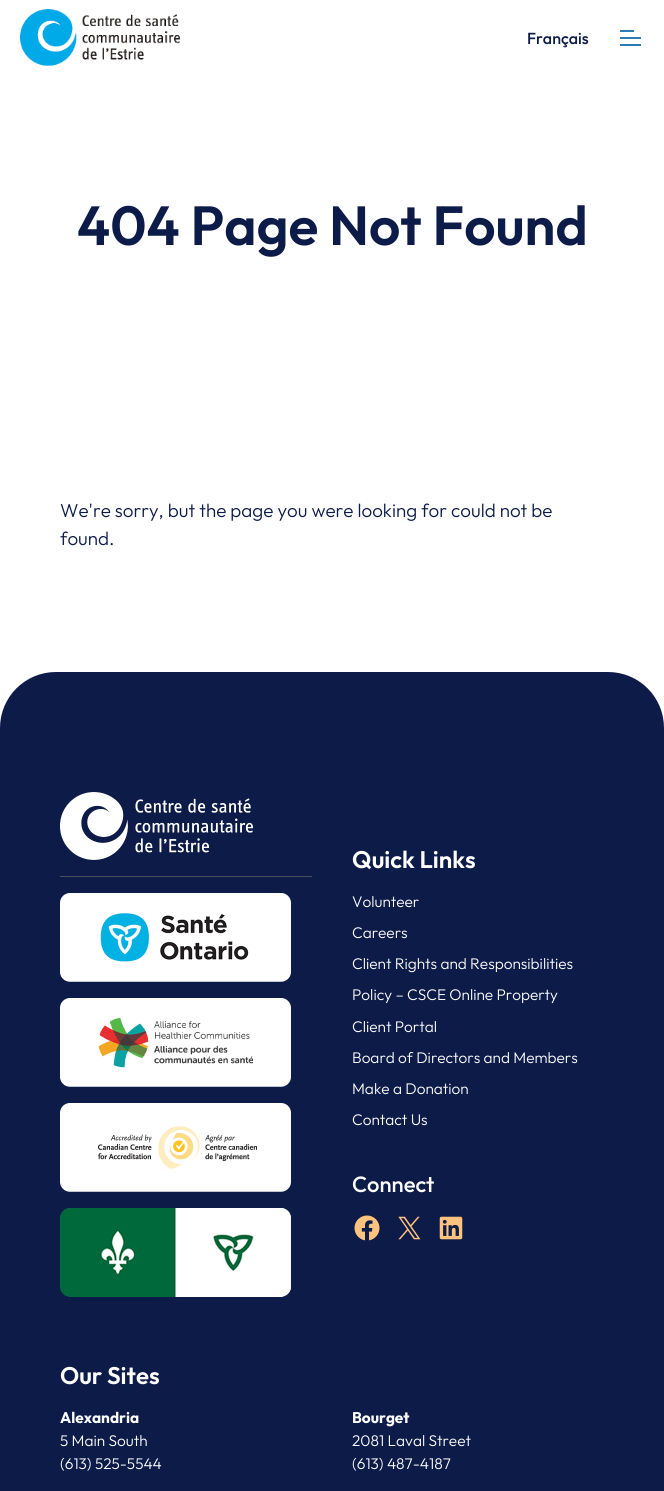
import math
import cairo

surface = cairo.ImageSurface(cairo.Format.RGB24, 664, 1491)
ctx = cairo.Context(surface)
options = cairo.FontOptions()
options.set_hint_metrics(cairo.HintMetrics.OFF)
options.set_hint_style(cairo.HintStyle.NONE)
ctx.set_font_options(options)
ctx.set_miter_limit(4)


def ink(r, g, b):
    ctx.set_source_rgb(r / 255, g / 255, b / 255)


def write(x, y, s, family, size, color, bold=False, italic=False):
    ctx.select_font_face(family, cairo.FontSlant.ITALIC if italic else cairo.FontSlant.NORMAL, cairo.FontWeight.BOLD if bold else cairo.FontWeight.NORMAL)
    ctx.set_font_size(size)
    ink(*color)
    ctx.move_to(x, y)
    ctx.show_text(s)


def block(x, y, w, h, *color):
    ink(*color)
    ctx.rectangle(x, y, w, h)
    ctx.fill()


def paste(path, x, y, w, h):
    ctx.save()
    ctx.set_source_surface(cairo.ImageSurface.create_from_png(path), x, y)
    ctx.rectangle(x, y, w, h)
    ctx.fill()
    ctx.restore()


s1 = dict(family="Outfit Medium", size=16, color=(13, 27, 73))
s2 = dict(family="Outfit SemiBold", size=55, color=(13, 27, 73))
s3 = dict(family="Outfit Light", size=18.8, color=(13, 27, 73))
s4 = dict(family="Outfit SemiBold", size=24, color=(255, 255, 255))
s5 = dict(family="Outfit Light", size=15.4, color=(255, 255, 255))
s6 = dict(family="Outfit Medium", size=22, color=(255, 255, 255))
s7 = dict(family="Outfit", size=15.4, color=(255, 255, 255), bold=True)

ink(255, 255, 255)
ctx.paint()
paste("pic1.png", 20, 9, 160, 57)
write(527, 44, "Français", **s1)
block(620, 30, 14, 2, 43, 124, 179)
block(620, 37, 21, 2, 43, 124, 179)
block(620, 44, 21, 2, 43, 124, 179)
write(77, 245, "404 Page Not Found", **s2)
write(60, 517, "We're sorry, but the page you were looking for could not be", **s3)
write(60, 545, "found.", **s3)
ctx.new_path()
ctx.move_to(56, 672)
ctx.line_to(608, 672)
ctx.curve_to(639, 672, 664, 697, 664, 728)
ctx.line_to(664, 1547)
ctx.line_to(0, 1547)
ctx.line_to(0, 728)
ctx.curve_to(0, 697, 25, 672, 56, 672)
ctx.close_path()
ctx.fill()
block(60, 876, 252, 1, 75, 79, 89)
paste("pic2.png", 60, 792, 193, 68)
paste("pic3.png", 60, 893, 231, 89)
paste("pic4.png", 60, 998, 231, 89)
paste("pic5.png", 60, 1103, 231, 89)
paste("pic6.png", 60, 1208, 231, 89)
write(352, 868, "Quick Links", **s4)
write(352, 907, "Volunteer", **s5)
write(352, 938, "Careers", **s5)
write(352, 969, "Client Rights and Responsibilities", **s5)
write(352, 1000, "Policy – CSCE Online Property", **s5)
write(352, 1032, "Client Portal", **s5)
write(352, 1063, "Board of Directors and Members", **s5)
write(352, 1094, "Make a Donation", **s5)
write(352, 1125, "Contact Us", **s5)
write(352, 1192, "Connect", **s6)
paste("pic7.png", 354, 1215, 26, 26)
paste("pic8.png", 398, 1216, 23, 24)
paste("pic9.png", 439, 1216, 24, 24)
write(60, 1384, "Our Sites", **s4)
write(60, 1423, "Alexandria", **s7)
write(60, 1446, "5 Main South", **s5)
write(60, 1469, "(613) 525-5544", **s5)
write(352, 1423, "Bourget", **s7)
write(352, 1446, "2081 Laval Street", **s5)
write(352, 1469, "(613) 487-4187", **s5)
surface.write_to_png("screenshot.png")
